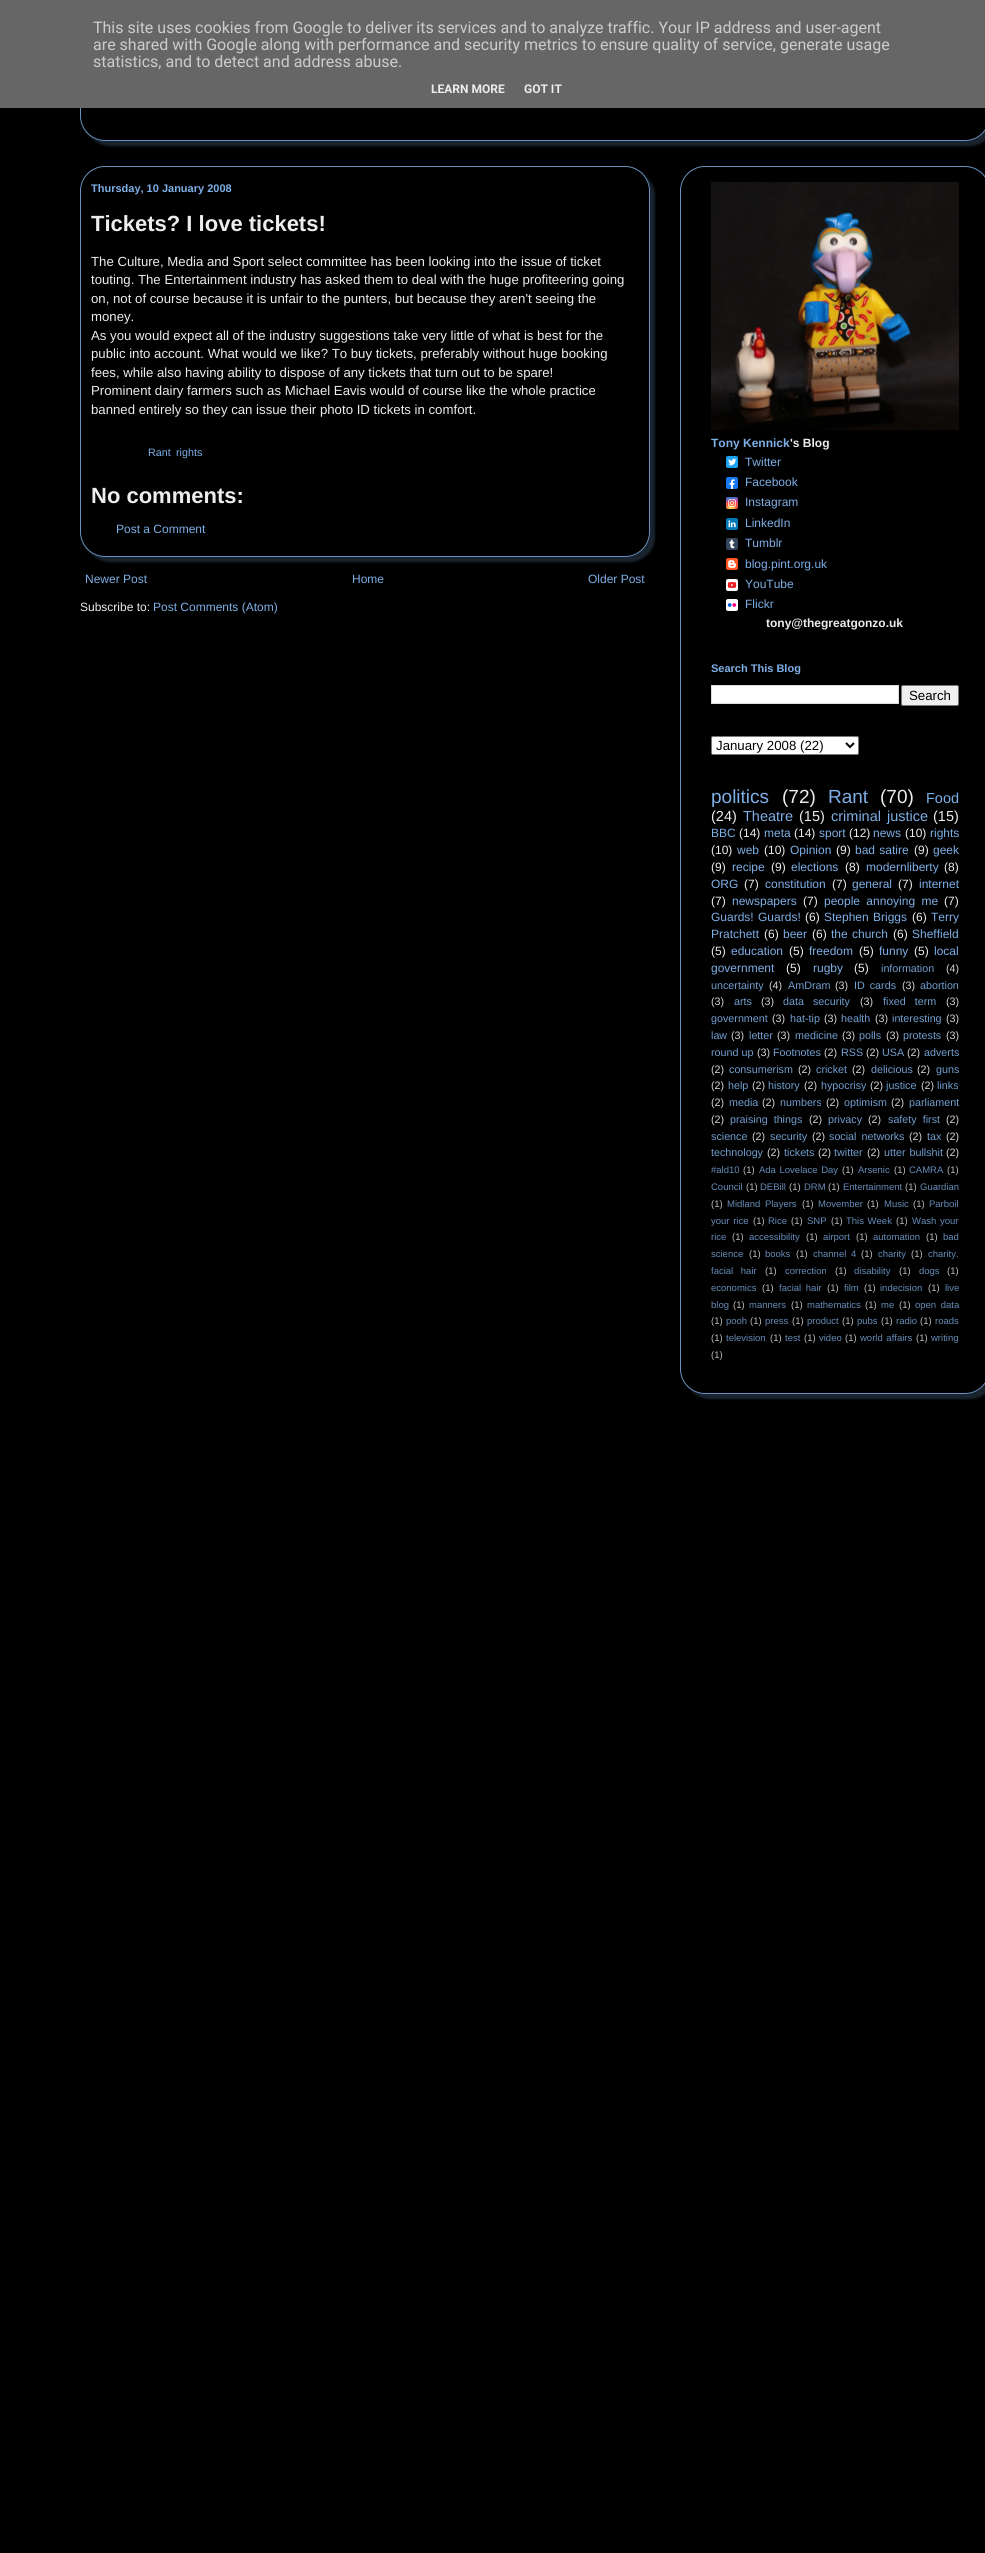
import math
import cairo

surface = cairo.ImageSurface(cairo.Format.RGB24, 985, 2553)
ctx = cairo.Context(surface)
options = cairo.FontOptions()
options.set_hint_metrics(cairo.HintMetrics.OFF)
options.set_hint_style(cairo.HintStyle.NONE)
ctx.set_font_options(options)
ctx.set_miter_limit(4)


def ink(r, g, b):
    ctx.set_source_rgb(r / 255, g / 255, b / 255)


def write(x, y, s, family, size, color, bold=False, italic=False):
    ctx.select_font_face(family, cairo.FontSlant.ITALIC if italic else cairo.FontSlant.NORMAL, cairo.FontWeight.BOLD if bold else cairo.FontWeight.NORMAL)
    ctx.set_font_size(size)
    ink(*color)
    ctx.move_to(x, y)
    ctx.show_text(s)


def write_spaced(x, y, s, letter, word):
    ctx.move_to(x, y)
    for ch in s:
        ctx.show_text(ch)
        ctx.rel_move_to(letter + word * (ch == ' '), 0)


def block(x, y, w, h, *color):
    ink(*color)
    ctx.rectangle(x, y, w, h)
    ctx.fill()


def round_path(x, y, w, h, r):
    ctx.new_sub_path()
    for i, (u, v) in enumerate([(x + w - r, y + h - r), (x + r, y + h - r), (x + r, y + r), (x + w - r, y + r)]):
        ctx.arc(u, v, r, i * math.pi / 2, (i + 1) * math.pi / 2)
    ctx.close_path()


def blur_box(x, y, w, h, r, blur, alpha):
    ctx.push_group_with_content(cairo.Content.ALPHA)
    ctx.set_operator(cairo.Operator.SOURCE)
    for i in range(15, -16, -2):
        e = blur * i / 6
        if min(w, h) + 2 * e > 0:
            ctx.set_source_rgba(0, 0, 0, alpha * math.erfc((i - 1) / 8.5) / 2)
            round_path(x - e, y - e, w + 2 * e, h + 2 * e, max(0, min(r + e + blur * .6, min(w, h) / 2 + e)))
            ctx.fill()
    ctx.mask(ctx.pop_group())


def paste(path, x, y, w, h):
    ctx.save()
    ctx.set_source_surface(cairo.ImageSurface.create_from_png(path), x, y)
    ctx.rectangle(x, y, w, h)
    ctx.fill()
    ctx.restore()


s1 = dict(family="Roboto", size=16, color=(204, 204, 204))
s2 = dict(family="Roboto", size=12, color=(237, 237, 237), bold=True)
s3 = dict(family="Liberation Sans", size=11, color=(126, 175, 230), bold=True)
s4 = dict(family="Liberation Sans", size=22, color=(237, 237, 237), bold=True)
s5 = dict(family="Liberation Sans", size=13.2, color=(237, 237, 237))
s6 = dict(family="Liberation Sans", size=10.75, color=(126, 175, 230))
s7 = dict(family="Liberation Sans", size=12, color=(126, 175, 230))
s8 = dict(family="Liberation Sans", size=12, color=(237, 237, 237))
s9 = dict(family="Liberation Sans", size=12, color=(126, 175, 230), bold=True)
s10 = dict(family="Liberation Sans", size=12, color=(237, 237, 237), bold=True)
s11 = dict(family="Liberation Sans", size=13.25, color=(0, 0, 0))
s12 = dict(family="Liberation Sans", size=19, color=(126, 175, 230))
s13 = dict(family="Liberation Sans", size=19, color=(237, 237, 237))
s14 = dict(family="Liberation Sans", size=14.5, color=(126, 175, 230))
s15 = dict(family="Liberation Sans", size=14.5, color=(237, 237, 237))
s16 = dict(family="Liberation Sans", size=10.75, color=(113, 158, 207))
s17 = dict(family="Liberation Sans", size=10.75, color=(213, 213, 213))
s18 = dict(family="Liberation Sans", size=9.5, color=(101, 140, 184))
s19 = dict(family="Liberation Sans", size=9.5, color=(190, 190, 190))

ink(0, 0, 0)
ctx.paint()
ctx.save()
ctx.set_fill_rule(cairo.FillRule.EVEN_ODD)
ctx.new_path()
ctx.move_to(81, 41)
ctx.line_to(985, 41)
ctx.line_to(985, 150)
ctx.line_to(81, 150)
ctx.close_path()
ctx.move_to(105, 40)
ctx.line_to(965, 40)
ctx.curve_to(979, 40, 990, 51, 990, 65)
ctx.line_to(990, 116)
ctx.curve_to(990, 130, 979, 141, 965, 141)
ctx.line_to(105, 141)
ctx.curve_to(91, 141, 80, 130, 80, 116)
ctx.line_to(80, 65)
ctx.curve_to(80, 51, 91, 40, 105, 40)
ctx.close_path()
ctx.clip()
ink(126, 175, 230)
blur_box(85, 45, 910, 101, 25, 1, 0.2)
ctx.restore()
round_path(80.5, 40.5, 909, 100, 24.5)
ctx.set_source_rgba(0.494, 0.686, 0.902, 0.83)
ctx.set_line_width(1)
ctx.stroke()
block(0, 0, 985, 108, 102, 102, 102)
write(93, 33, "This site uses cookies from Google to deliver its services and to analyze traffic. Your IP address and user-agent", **s1)
write(93, 50, "are shared with Google along with performance and security metrics to ensure quality of service, generate usage", **s1)
write(93, 67, "statistics, and to detect and address abuse.", **s1)
write(431, 93, "LEARN MORE", **s2)
write(524, 93, "GOT IT", **s2)
ctx.save()
ctx.set_fill_rule(cairo.FillRule.EVEN_ODD)
ctx.new_path()
ctx.move_to(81, 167)
ctx.line_to(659, 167)
ctx.line_to(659, 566)
ctx.line_to(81, 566)
ctx.close_path()
ctx.move_to(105, 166)
ctx.line_to(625, 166)
ctx.curve_to(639, 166, 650, 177, 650, 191)
ctx.line_to(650, 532)
ctx.curve_to(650, 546, 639, 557, 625, 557)
ctx.line_to(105, 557)
ctx.curve_to(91, 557, 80, 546, 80, 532)
ctx.line_to(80, 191)
ctx.curve_to(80, 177, 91, 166, 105, 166)
ctx.close_path()
ctx.clip()
ink(126, 175, 230)
blur_box(85, 171, 570, 391, 25, 1, 0.2)
ctx.restore()
round_path(80.5, 166.5, 569, 390, 24.5)
ctx.set_source_rgba(0.494, 0.686, 0.902, 0.83)
ctx.stroke()
write(91, 192, "Thursday, 10 January 2008", **s3)
write(91, 231, "Tickets? I love tickets!", **s4)
write(91, 266, "The Culture, Media and Sport select committee has been looking into the issue of ticket", **s5)
write(91, 284, "touting. The Entertainment industry has asked them to deal with the huge profiteering going", **s5)
write(91, 303, "on, not of course because it is unfair to the punters, but because they aren't seeing the", **s5)
write(91, 321, "money.", **s5)
write(91, 340, "As you would expect all of the industry suggestions take very little of what is best for the", **s5)
write(91, 358, "public into account. What would we like? To buy tickets, preferably without huge booking", **s5)
write(91, 377, "fees, while also having ability to dispose of any tickets that turn out to be spare!", **s5)
write(91, 395, "Prominent dairy farmers such as Michael Eavis would of course like the whole practice", **s5)
write(91, 414, "banned entirely so they can issue their photo ID tickets in comfort.", **s5)
write(148, 456, "Rant", **s6)
write(176, 456, "rights", **s6)
write(91, 503, "No comments:", **s4)
write(116, 533, "Post a Comment", **s7)
write(85, 583, "Newer Post", **s7)
write(352, 583, "Home", **s7)
write(588, 583, "Older Post", **s7)
write(80, 611, "Subscribe to:", **s8)
write(153, 611, "Post Comments (Atom)", **s7)
ctx.save()
ctx.set_fill_rule(cairo.FillRule.EVEN_ODD)
ctx.new_path()
ctx.move_to(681, 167)
ctx.line_to(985, 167)
ctx.line_to(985, 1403)
ctx.line_to(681, 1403)
ctx.close_path()
ctx.move_to(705, 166)
ctx.line_to(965, 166)
ctx.curve_to(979, 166, 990, 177, 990, 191)
ctx.line_to(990, 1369)
ctx.curve_to(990, 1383, 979, 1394, 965, 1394)
ctx.line_to(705, 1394)
ctx.curve_to(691, 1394, 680, 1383, 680, 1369)
ctx.line_to(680, 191)
ctx.curve_to(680, 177, 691, 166, 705, 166)
ctx.close_path()
ctx.clip()
ink(126, 175, 230)
blur_box(685, 171, 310, 1228, 25, 1, 0.2)
ctx.restore()
round_path(680.5, 166.5, 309, 1227, 24.5)
ctx.set_source_rgba(0.494, 0.686, 0.902, 0.83)
ctx.stroke()
paste("pic1.png", 711, 182, 248, 248)
write(711, 447, "Tony Kennick", **s9)
write(790, 447, "'s Blog", **s10)
paste("pic2.png", 726, 456, 12, 12)
write(745, 466, "Twitter", **s7)
paste("pic3.png", 726, 477, 12, 12)
write(745, 486, "Facebook", **s7)
paste("pic4.png", 726, 497, 12, 12)
write(745, 506, "Instagram", **s7)
paste("pic5.png", 726, 518, 12, 12)
write(745, 527, "LinkedIn", **s7)
paste("pic6.png", 726, 538, 12, 12)
write(745, 547, "Tumblr", **s7)
paste("pic7.png", 726, 558, 12, 12)
write(745, 568, "blog.pint.org.uk", **s7)
paste("pic8.png", 726, 579, 12, 12)
write(745, 588, "YouTube", **s7)
ink(255, 255, 255)
round_path(726, 599, 12, 12, 2)
ctx.fill()
write(745, 608, "Flickr", **s7)
ink(0, 99, 220)
ctx.new_path()
ctx.arc(729.7, 605, 1.9, 0, 2 * math.pi)
ctx.fill()
ink(255, 0, 132)
ctx.arc(734.3, 605, 1.9, 0, 2 * math.pi)
ctx.fill()
write(766, 627, "tony@thegreatgonzo.uk", **s10)
write(711, 672, "Search This Blog", **s3)
ink(255, 255, 255)
ctx.rectangle(711.5, 685.5, 187, 18)
ctx.fill_preserve()
ink(221, 221, 221)
ctx.stroke()
ink(239, 239, 239)
round_path(901.5, 685.5, 57, 20, 1.5)
ctx.fill_preserve()
ink(118, 118, 118)
ctx.stroke()
write(909, 700, "Search", **s11)
ink(255, 255, 255)
round_path(711.5, 736.5, 147, 18, 1.5)
ctx.fill_preserve()
ink(118, 118, 118)
ctx.stroke()
ctx.new_path()
ctx.move_to(846, 743)
ctx.line_to(850, 747)
ctx.line_to(854, 743)
ink(0, 0, 0)
ctx.set_line_width(2)
ctx.stroke()
write(716, 750, "January 2008 (22)", **s11)
write(711, 803, "politics", **s12)
write(782, 803, "(72)", **s13)
write(828, 803, "Rant", **s12)
write(880, 803, "(70)", **s13)
write(926, 803, "Food", **s14)
write(711, 821, "(24)", **s15)
write(743, 821, "Theatre", **s14)
write(799, 821, "(15)", **s15)
ink(126, 175, 230)
write_spaced(831, 821, "criminal justice", 0, 2)
write(933, 821, "(15)", **s15)
write(711, 837, "BBC", **s7)
write(739, 837, "(14)", **s8)
write(764, 837, "meta", **s7)
write(794, 837, "(14)", **s8)
write(819, 837, "sport", **s7)
write(849, 837, "(12)", **s8)
write(873, 837, "news", **s7)
write(905, 837, "(10)", **s8)
write(930, 837, "rights", **s7)
write(711, 854, "(10)", **s8)
write(737, 854, "web", **s7)
write(764, 854, "(10)", **s8)
write(790, 854, "Opinion", **s7)
write(836, 854, "(9)", **s8)
ink(126, 175, 230)
write_spaced(855, 854, "bad satire", 0, 1)
write(914, 854, "(9)", **s8)
write(933, 854, "geek", **s7)
write(711, 871, "(9)", **s8)
write(732, 871, "recipe", **s7)
write(771, 871, "(9)", **s8)
write(791, 871, "elections", **s7)
write(845, 871, "(8)", **s8)
write(866, 871, "modernliberty", **s7)
write(944, 871, "(8)", **s8)
write(711, 888, "ORG", **s7)
write(744, 888, "(7)", **s8)
write(765, 888, "constitution", **s7)
write(832, 888, "(7)", **s8)
write(852, 888, "general", **s7)
write(898, 888, "(7)", **s8)
write(919, 888, "internet", **s7)
write(711, 905, "(7)", **s8)
write(732, 905, "newspapers", **s7)
write(803, 905, "(7)", **s8)
ink(126, 175, 230)
write_spaced(824, 905, "people annoying me", 0, 3)
write(944, 905, "(7)", **s8)
ink(126, 175, 230)
write_spaced(711, 921, "Guards! Guards!", 0, 1)
write(805, 921, "(6)", **s8)
ink(126, 175, 230)
write_spaced(824, 921, "Stephen Briggs", 0, 1)
write(912, 921, "(6)", **s8)
write(931, 921, "Terry", **s7)
write(711, 938, "Pratchett", **s7)
write(764, 938, "(6)", **s8)
write(783, 938, "beer", **s7)
write(812, 938, "(6)", **s8)
ink(126, 175, 230)
write_spaced(831, 938, "the church", 0, 1)
write(893, 938, "(6)", **s8)
write(912, 938, "Sheffield", **s7)
write(711, 955, "(5)", **s8)
write(731, 955, "education", **s7)
write(789, 955, "(5)", **s8)
write(809, 955, "freedom", **s7)
write(859, 955, "(5)", **s8)
write(879, 955, "funny", **s7)
write(914, 955, "(5)", **s8)
write(934, 955, "local", **s7)
write(711, 972, "government", **s7)
write(786, 972, "(5)", **s8)
write(813, 972, "rugby", **s7)
write(854, 972, "(5)", **s8)
write(881, 972, "information", **s16)
write(946, 972, "(4)", **s17)
write(711, 989, "uncertainty", **s16)
write(769, 989, "(4)", **s17)
write(788, 989, "AmDram", **s16)
write(835, 989, "(3)", **s17)
ink(113, 158, 207)
write_spaced(854, 989, "ID cards", 0, 2)
write(902, 989, "(3)", **s17)
write(920, 989, "abortion", **s16)
write(711, 1005, "(3)", **s17)
write(734, 1005, "arts", **s16)
write(761, 1005, "(3)", **s17)
ink(113, 158, 207)
write_spaced(783, 1005, "data security", 0, 6)
write(860, 1005, "(3)", **s17)
ink(113, 158, 207)
write_spaced(883, 1005, "fixed term", 0, 6)
write(946, 1005, "(3)", **s17)
write(711, 1022, "government", **s16)
write(772, 1022, "(3)", **s17)
write(790, 1022, "hat-tip", **s16)
write(824, 1022, "(3)", **s17)
write(841, 1022, "health", **s16)
write(875, 1022, "(3)", **s17)
write(892, 1022, "interesting", **s16)
write(946, 1022, "(3)", **s17)
write(711, 1039, "law", **s16)
write(731, 1039, "(3)", **s17)
write(749, 1039, "letter", **s16)
write(777, 1039, "(3)", **s17)
write(795, 1039, "medicine", **s16)
write(842, 1039, "(3)", **s17)
write(859, 1039, "polls", **s16)
write(886, 1039, "(3)", **s17)
write(903, 1039, "protests", **s16)
write(946, 1039, "(3)", **s17)
write(711, 1056, "round up", **s16)
write(757, 1056, "(3)", **s17)
write(773, 1056, "Footnotes", **s16)
write(824, 1056, "(2)", **s17)
write(841, 1056, "RSS", **s16)
write(866, 1056, "(2)", **s17)
write(882, 1056, "USA", **s16)
write(907, 1056, "(2)", **s17)
write(924, 1056, "adverts", **s16)
write(711, 1073, "(2)", **s17)
write(729, 1073, "consumerism", **s16)
write(798, 1073, "(2)", **s17)
write(816, 1073, "cricket", **s16)
write(852, 1073, "(2)", **s17)
write(871, 1073, "delicious", **s16)
write(917, 1073, "(2)", **s17)
write(936, 1073, "guns", **s16)
write(711, 1089, "(2)", **s17)
write(728, 1089, "help", **s16)
write(752, 1089, "(2)", **s17)
write(768, 1089, "history", **s16)
write(804, 1089, "(2)", **s17)
write(821, 1089, "hypocrisy", **s16)
write(870, 1089, "(2)", **s17)
write(886, 1089, "justice", **s16)
write(921, 1089, "(2)", **s17)
write(937, 1089, "links", **s16)
write(711, 1106, "(2)", **s17)
write(729, 1106, "media", **s16)
write(762, 1106, "(2)", **s17)
write(780, 1106, "numbers", **s16)
write(826, 1106, "(2)", **s17)
write(844, 1106, "optimism", **s16)
write(891, 1106, "(2)", **s17)
write(909, 1106, "parliament", **s16)
write(711, 1123, "(2)", **s17)
ink(113, 158, 207)
write_spaced(730, 1123, "praising things", 0, 3)
write(809, 1123, "(2)", **s17)
write(828, 1123, "privacy", **s16)
write(868, 1123, "(2)", **s17)
ink(113, 158, 207)
write_spaced(888, 1123, "safety first", 0, 3)
write(946, 1123, "(2)", **s17)
write(711, 1140, "science", **s16)
write(752, 1140, "(2)", **s17)
write(770, 1140, "security", **s16)
write(812, 1140, "(2)", **s17)
ink(113, 158, 207)
write_spaced(829, 1140, "social networks", 0, 2)
write(909, 1140, "(2)", **s17)
write(927, 1140, "tax", **s16)
write(946, 1140, "(2)", **s17)
write(711, 1156, "technology", **s16)
write(767, 1156, "(2)", **s17)
write(784, 1156, "tickets", **s16)
write(818, 1156, "(2)", **s17)
write(834, 1156, "twitter", **s16)
write(867, 1156, "(2)", **s17)
ink(113, 158, 207)
write_spaced(884, 1156, "utter bullshit", 0, 1)
write(946, 1156, "(2)", **s17)
write(711, 1173, "#ald10", **s18)
write(743, 1173, "(1)", **s19)
ink(101, 140, 184)
write_spaced(759, 1173, "Ada Lovelace Day", 0, 1)
write(842, 1173, "(1)", **s19)
write(858, 1173, "Arsenic", **s18)
write(894, 1173, "(1)", **s19)
write(909, 1173, "CAMRA", **s18)
write(947, 1173, "(1)", **s19)
write(711, 1190, "Council", **s18)
write(746, 1190, "(1)", **s19)
write(760, 1190, "DEBill", **s18)
write(789, 1190, "(1)", **s19)
write(804, 1190, "DRM", **s18)
write(828, 1190, "(1)", **s19)
write(843, 1190, "Entertainment", **s18)
write(905, 1190, "(1)", **s19)
write(920, 1190, "Guardian", **s18)
write(711, 1207, "(1)", **s19)
ink(101, 140, 184)
write_spaced(727, 1207, "Midland Players", 0, 2)
write(802, 1207, "(1)", **s19)
write(818, 1207, "Movember", **s18)
write(867, 1207, "(1)", **s19)
write(884, 1207, "Music", **s18)
write(913, 1207, "(1)", **s19)
write(929, 1207, "Parboil", **s18)
write_spaced(711, 1224, "your rice", 0, 1)
write(753, 1224, "(1)", **s19)
write(768, 1224, "Rice", **s18)
write(791, 1224, "(1)", **s19)
write(807, 1224, "SNP", **s18)
write(831, 1224, "(1)", **s19)
ink(101, 140, 184)
write_spaced(846, 1224, "This Week", 0, 1)
write(896, 1224, "(1)", **s19)
ink(101, 140, 184)
write_spaced(912, 1224, "Wash your", 0, 1)
write(711, 1240, "rice", **s18)
write(732, 1240, "(1)", **s19)
write(749, 1240, "accessibility", **s18)
write(806, 1240, "(1)", **s19)
write(823, 1240, "airport", **s18)
write(856, 1240, "(1)", **s19)
write(873, 1240, "automation", **s18)
write(926, 1240, "(1)", **s19)
write(943, 1240, "bad", **s18)
write(711, 1257, "science", **s18)
write(749, 1257, "(1)", **s19)
write(765, 1257, "books", **s18)
write(796, 1257, "(1)", **s19)
ink(101, 140, 184)
write_spaced(813, 1257, "channel 4", 0, 2)
write(861, 1257, "(1)", **s19)
write(878, 1257, "charity", **s18)
write(911, 1257, "(1)", **s19)
write(928, 1257, "charity.", **s18)
write_spaced(711, 1274, "facial hair", 0, 5)
write(765, 1274, "(1)", **s19)
write(785, 1274, "correction", **s18)
write(835, 1274, "(1)", **s19)
write(854, 1274, "disability", **s18)
write(899, 1274, "(1)", **s19)
write(919, 1274, "dogs", **s18)
write(947, 1274, "(1)", **s19)
write(711, 1291, "economics", **s18)
write(762, 1291, "(1)", **s19)
ink(101, 140, 184)
write_spaced(779, 1291, "facial hair", 0, 2)
write(827, 1291, "(1)", **s19)
write(844, 1291, "film", **s18)
write(864, 1291, "(1)", **s19)
write(880, 1291, "indecision", **s18)
write(928, 1291, "(1)", **s19)
write(945, 1291, "live", **s18)
write(711, 1308, "blog", **s18)
write(733, 1308, "(1)", **s19)
write(749, 1308, "manners", **s18)
write(791, 1308, "(1)", **s19)
write(807, 1308, "mathematics", **s18)
write(865, 1308, "(1)", **s19)
write(881, 1308, "me", **s18)
write(899, 1308, "(1)", **s19)
ink(101, 140, 184)
write_spaced(915, 1308, "open data", 0, 2)
write(711, 1324, "(1)", **s19)
write(726, 1324, "pooh", **s18)
write(750, 1324, "(1)", **s19)
write(765, 1324, "press", **s18)
write(792, 1324, "(1)", **s19)
write(807, 1324, "product", **s18)
write(842, 1324, "(1)", **s19)
write(857, 1324, "pubs", **s18)
write(881, 1324, "(1)", **s19)
write(896, 1324, "radio", **s18)
write(920, 1324, "(1)", **s19)
write(935, 1324, "roads", **s18)
write(711, 1341, "(1)", **s19)
write(726, 1341, "television", **s18)
write(770, 1341, "(1)", **s19)
write(785, 1341, "test", **s18)
write(804, 1341, "(1)", **s19)
write(819, 1341, "video", **s18)
write(845, 1341, "(1)", **s19)
ink(101, 140, 184)
write_spaced(860, 1341, "world affairs", 0, 1)
write(916, 1341, "(1)", **s19)
write(931, 1341, "writing", **s18)
write(711, 1358, "(1)", **s19)
surface.write_to_png("screenshot.png")
